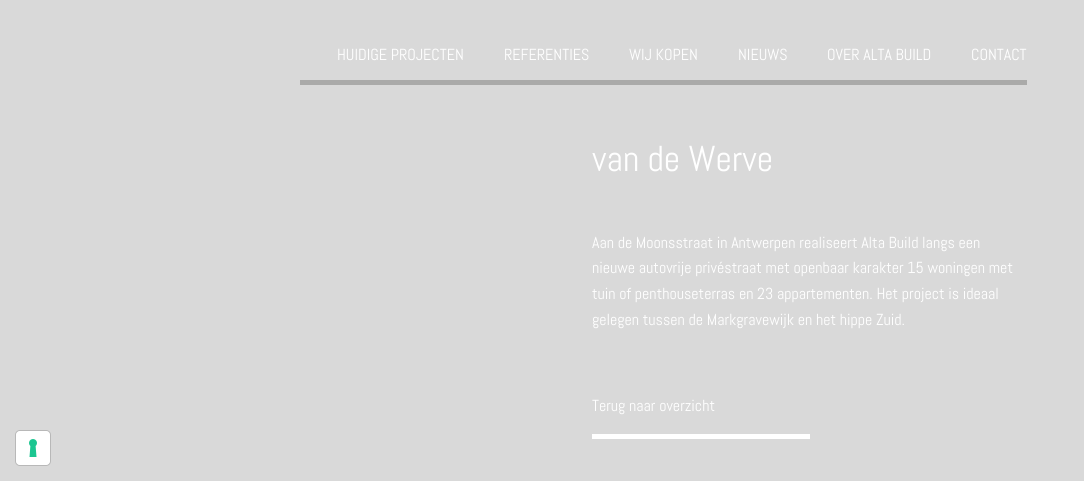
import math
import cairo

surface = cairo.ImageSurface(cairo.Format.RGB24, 1084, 481)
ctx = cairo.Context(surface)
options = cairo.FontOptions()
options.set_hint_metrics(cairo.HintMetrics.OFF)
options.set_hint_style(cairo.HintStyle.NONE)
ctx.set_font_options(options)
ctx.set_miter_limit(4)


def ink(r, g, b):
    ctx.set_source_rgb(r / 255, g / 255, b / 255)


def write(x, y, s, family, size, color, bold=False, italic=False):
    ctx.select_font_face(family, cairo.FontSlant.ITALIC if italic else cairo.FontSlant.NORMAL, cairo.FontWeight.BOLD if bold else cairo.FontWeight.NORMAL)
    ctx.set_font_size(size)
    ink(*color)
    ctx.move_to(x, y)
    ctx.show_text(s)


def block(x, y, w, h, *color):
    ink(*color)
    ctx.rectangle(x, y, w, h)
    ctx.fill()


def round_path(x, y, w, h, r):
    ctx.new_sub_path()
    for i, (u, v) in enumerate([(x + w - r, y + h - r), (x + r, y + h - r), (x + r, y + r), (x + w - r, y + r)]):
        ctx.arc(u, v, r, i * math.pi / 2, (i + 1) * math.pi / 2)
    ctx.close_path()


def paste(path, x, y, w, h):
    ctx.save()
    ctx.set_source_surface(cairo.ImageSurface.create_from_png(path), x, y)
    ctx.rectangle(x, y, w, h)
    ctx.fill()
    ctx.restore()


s1 = dict(family="Abel", size=16, color=(255, 255, 255))
s2 = dict(family="Abel", size=36, color=(255, 255, 255))

ink(217, 217, 217)
ctx.paint()
block(300, 80, 727, 5, 170, 170, 169)
write(337, 60, "HUIDIGE PROJECTEN", **s1)
write(504, 60, "REFERENTIES", **s1)
write(629, 60, "WIJ KOPEN", **s1)
write(738, 60, "NIEUWS", **s1)
write(827, 60, "OVER ALTA BUILD", **s1)
write(971, 60, "CONTACT", **s1)
write(592, 171, "van de Werve", **s2)
write(592, 248, "Aan de Moonsstraat in Antwerpen realiseert Alta Build langs een", **s1)
write(592, 273, "nieuwe autovrije privéstraat met openbaar karakter 15 woningen met", **s1)
write(592, 299, "tuin of penthouseterras en 23 appartementen. Het project is ideaal", **s1)
write(592, 325, "gelegen tussen de Markgravewijk en het hippe Zuid.", **s1)
write(592, 411, "Terug naar overzicht", **s1)
block(592, 434, 218, 5, 255, 255, 255)
round_path(15.5, 430.5, 35, 35, 4.5)
ink(184, 184, 184)
ctx.set_line_width(1)
ctx.stroke()
ink(255, 255, 255)
round_path(16, 431, 34, 34, 4)
ctx.fill()
paste("pic1.png", 29, 439, 8, 18)
surface.write_to_png("screenshot.png")
